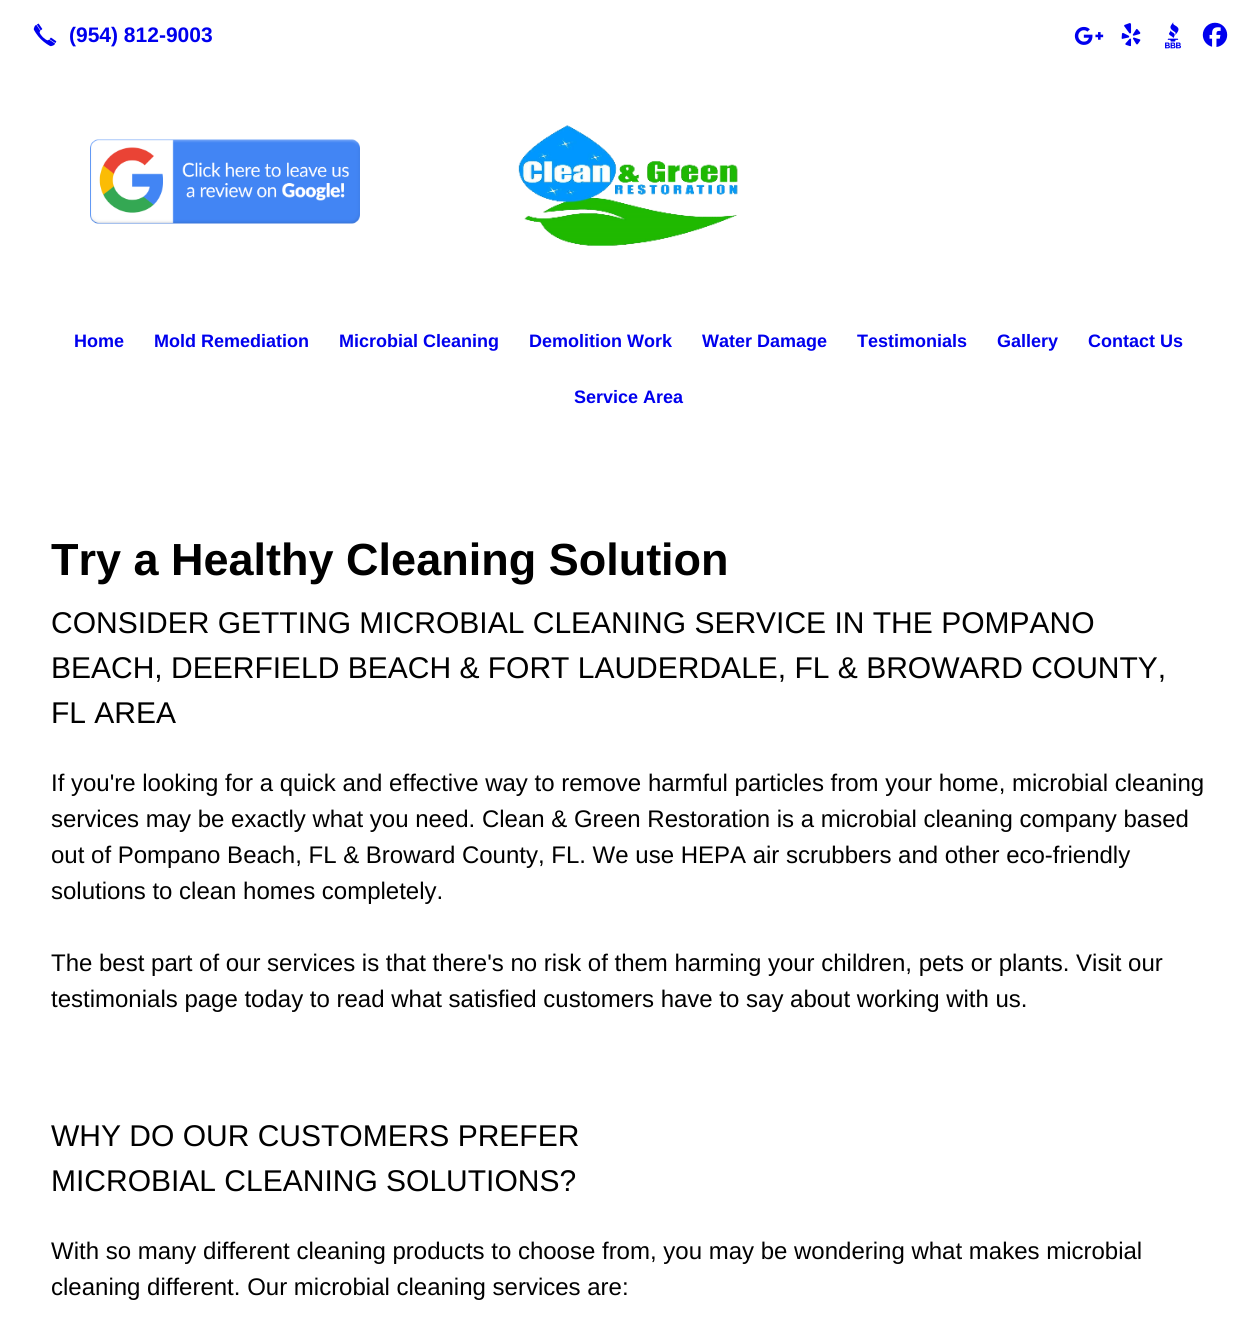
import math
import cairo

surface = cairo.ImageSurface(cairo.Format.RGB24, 1256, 1325)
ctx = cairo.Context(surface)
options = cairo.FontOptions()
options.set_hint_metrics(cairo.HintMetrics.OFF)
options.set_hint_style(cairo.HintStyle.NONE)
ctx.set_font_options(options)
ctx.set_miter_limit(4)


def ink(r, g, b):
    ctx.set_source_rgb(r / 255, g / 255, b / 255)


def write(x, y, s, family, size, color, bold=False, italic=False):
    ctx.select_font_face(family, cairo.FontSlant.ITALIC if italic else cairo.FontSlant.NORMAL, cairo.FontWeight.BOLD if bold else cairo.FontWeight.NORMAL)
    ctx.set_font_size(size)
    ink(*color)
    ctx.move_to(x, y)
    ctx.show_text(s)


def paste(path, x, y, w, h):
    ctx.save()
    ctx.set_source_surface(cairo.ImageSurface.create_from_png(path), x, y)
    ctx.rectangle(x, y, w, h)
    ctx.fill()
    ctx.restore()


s1 = dict(family="Liberation Sans", size=21, color=(0, 0, 238), bold=True)
s2 = dict(family="Liberation Sans", size=18, color=(0, 0, 238), bold=True)
s3 = dict(family="Liberation Sans", size=45, color=(0, 0, 0), bold=True)
s4 = dict(family="Liberation Sans", size=30, color=(0, 0, 0))
s5 = dict(family="Liberation Sans", size=24, color=(0, 0, 0))

ink(255, 255, 255)
ctx.paint()
paste("pic1.png", 33, 23, 24, 24)
write(69, 42, "(954) 812-9003", **s1)
paste("pic2.png", 1074, 26, 30, 19)
paste("pic3.png", 1121, 23, 20, 24)
paste("pic4.png", 1165, 22, 16, 27)
paste("pic5.png", 1202, 22, 26, 25)
paste("pic6.png", 90, 139, 270, 85)
paste("pic7.png", 518, 125, 220, 121)
write(74, 347, "Home", **s2)
write(154, 347, "Mold Remediation", **s2)
write(339, 347, "Microbial Cleaning", **s2)
write(529, 347, "Demolition Work", **s2)
write(702, 347, "Water Damage", **s2)
write(857, 347, "Testimonials", **s2)
write(997, 347, "Gallery", **s2)
write(1088, 347, "Contact Us", **s2)
write(574, 403, "Service Area", **s2)
write(51, 575, "Try a Healthy Cleaning Solution", **s3)
write(51, 633, "CONSIDER GETTING MICROBIAL CLEANING SERVICE IN THE POMPANO", **s4)
write(51, 678, "BEACH, DEERFIELD BEACH & FORT LAUDERDALE, FL & BROWARD COUNTY,", **s4)
write(51, 723, "FL AREA", **s4)
write(51, 791, "If you're looking for a quick and effective way to remove harmful particles from your home, microbial cleaning", **s5)
write(51, 827, "services may be exactly what you need. Clean & Green Restoration is a microbial cleaning company based", **s5)
write(51, 863, "out of Pompano Beach, FL & Broward County, FL. We use HEPA air scrubbers and other eco-friendly", **s5)
write(51, 899, "solutions to clean homes completely.", **s5)
write(51, 971, "The best part of our services is that there's no risk of them harming your children, pets or plants. Visit our", **s5)
write(51, 1007, "testimonials page today to read what satisfied customers have to say about working with us.", **s5)
write(51, 1146, "WHY DO OUR CUSTOMERS PREFER", **s4)
write(51, 1191, "MICROBIAL CLEANING SOLUTIONS?", **s4)
write(51, 1259, "With so many different cleaning products to choose from, you may be wondering what makes microbial", **s5)
write(51, 1295, "cleaning different. Our microbial cleaning services are:", **s5)
surface.write_to_png("screenshot.png")
